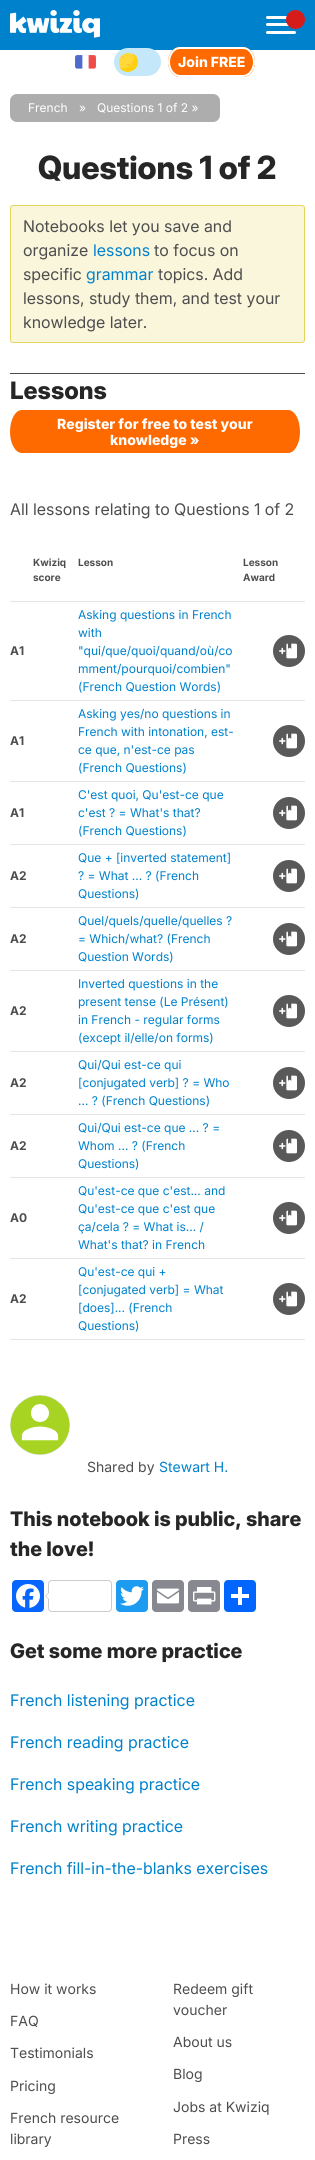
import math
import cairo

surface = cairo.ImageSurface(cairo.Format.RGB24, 315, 2160)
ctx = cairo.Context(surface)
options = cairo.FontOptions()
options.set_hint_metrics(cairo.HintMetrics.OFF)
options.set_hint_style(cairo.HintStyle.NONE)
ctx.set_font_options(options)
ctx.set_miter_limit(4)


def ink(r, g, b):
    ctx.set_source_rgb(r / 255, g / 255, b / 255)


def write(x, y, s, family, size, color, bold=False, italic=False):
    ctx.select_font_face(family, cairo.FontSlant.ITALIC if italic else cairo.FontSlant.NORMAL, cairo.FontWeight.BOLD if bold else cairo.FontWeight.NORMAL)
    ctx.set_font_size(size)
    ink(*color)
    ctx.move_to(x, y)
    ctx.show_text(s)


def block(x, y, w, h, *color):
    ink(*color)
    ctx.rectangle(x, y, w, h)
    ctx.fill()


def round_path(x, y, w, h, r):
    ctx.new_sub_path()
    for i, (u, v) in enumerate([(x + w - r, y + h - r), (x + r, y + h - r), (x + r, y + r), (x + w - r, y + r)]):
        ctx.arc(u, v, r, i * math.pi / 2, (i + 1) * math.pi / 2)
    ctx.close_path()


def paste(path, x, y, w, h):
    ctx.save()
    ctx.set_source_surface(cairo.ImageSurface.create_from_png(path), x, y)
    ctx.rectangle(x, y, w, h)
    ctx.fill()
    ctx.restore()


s1 = dict(family="Inter ExtraBold", size=14, color=(255, 255, 255))
s2 = dict(family="Inter", size=12, color=(255, 255, 255))
s3 = dict(family="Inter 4 ExtraBold", size=32, color=(38, 38, 38))
s4 = dict(family="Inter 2", size=16, color=(77, 77, 77))
s5 = dict(family="Inter 2", size=16, color=(0, 129, 204))
s6 = dict(family="Inter 2 ExtraBold", size=24, color=(38, 38, 38))
s7 = dict(family="Inter", size=10, color=(77, 77, 77), bold=True)
s8 = dict(family="Inter", size=12, color=(77, 77, 77), bold=True)
s9 = dict(family="Inter", size=12, color=(0, 129, 204))
s10 = dict(family="Inter", size=14, color=(77, 77, 77))
s11 = dict(family="Inter", size=14, color=(0, 129, 204))
s12 = dict(family="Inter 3 ExtraBold", size=20, color=(38, 38, 38))

ink(255, 255, 255)
ctx.paint()
block(0, 0, 315, 50, 0, 129, 204)
paste("pic1.png", 10, 10, 90, 28)
ink(255, 255, 255)
round_path(266, 16, 30, 3, 1.5)
ctx.fill()
round_path(266, 23, 30, 3, 1.5)
ctx.fill()
ink(213, 28, 27)
ctx.arc(295.5, 19.5, 9.5, 0, 2 * math.pi)
ctx.fill()
ink(255, 255, 255)
round_path(266, 31, 30, 3, 1.5)
ctx.fill()
paste("pic2.png", 75, 55, 21, 14)
ink(196, 232, 250)
round_path(114, 48, 47, 28, 14)
ctx.fill()
ink(255, 217, 58)
ctx.arc(128, 62, 9, 0, 2 * math.pi)
ctx.fill()
ink(255, 208, 11)
ctx.new_path()
ctx.move_to(119, 66.5)
ctx.curve_to(125, 78, 142.5, 69.5, 137, 57.5)
ctx.curve_to(136, 55.5, 134, 54, 132, 53)
ctx.curve_to(138, 61.5, 127.5, 72, 119, 66.5)
ctx.close_path()
ctx.fill()
ink(255, 193, 53)
ctx.new_path()
ctx.move_to(123.5, 56.5)
ctx.curve_to(124.5, 57, 123, 59, 122, 58)
ctx.curve_to(121, 57.5, 122.5, 55.5, 123.5, 56.5)
ctx.close_path()
ctx.fill()
round_path(127, 64, 3, 2, 1)
ctx.fill()
ctx.new_path()
ctx.move_to(132.5, 62)
ctx.curve_to(133.5, 61.5, 134.5, 64, 133, 64.5)
ctx.curve_to(132, 65, 131, 62.5, 132.5, 62)
ctx.close_path()
ctx.fill()
ink(255, 106, 0)
ctx.new_path()
ctx.move_to(180, 47)
ctx.line_to(243, 47)
ctx.curve_to(250, 47, 255, 54, 255, 62)
ctx.curve_to(255, 70, 250, 77, 243, 77)
ctx.line_to(180, 77)
ctx.curve_to(173, 77, 168, 70, 168, 62)
ctx.curve_to(168, 54, 173, 47, 180, 47)
ctx.close_path()
ctx.fill()
ctx.new_path()
ctx.move_to(180, 48)
ctx.line_to(243, 48)
ctx.curve_to(249, 48, 254, 54.5, 254, 62)
ctx.curve_to(254, 69.5, 249, 76, 243, 76)
ctx.line_to(180, 76)
ctx.curve_to(174, 76, 169, 69.5, 169, 62)
ctx.curve_to(169, 54.5, 174, 48, 180, 48)
ctx.close_path()
ink(255, 255, 255)
ctx.stroke()
write(178, 67, "Join FREE", **s1)
ink(173, 173, 173)
round_path(10, 94, 210, 28, 7)
ctx.fill()
write(28, 112, "French", **s2)
write(79, 112, "»", **s2)
write(97, 112, "Questions 1 of 2 »", **s2)
write(38, 179, "Questions 1 of 2", **s3)
ink(250, 246, 220)
round_path(10.5, 205.5, 294, 137, 2.5)
ctx.fill_preserve()
ink(231, 212, 90)
ctx.set_line_width(1)
ctx.stroke()
write(23, 232, "Notebooks let you save and", **s4)
write(23, 256, "organize", **s4)
write(93, 256, "lessons", **s5)
write(154, 256, "to focus on", **s4)
write(23, 280, "specific", **s4)
write(86, 280, "grammar", **s5)
write(158, 280, "topics. Add", **s4)
write(23, 304, "lessons, study them, and test your", **s4)
write(23, 328, "knowledge later.", **s4)
block(10, 373, 295, 1, 77, 77, 77)
write(10, 399, "Lessons", **s6)
ink(255, 106, 0)
ctx.new_path()
ctx.move_to(22, 410)
ctx.line_to(288, 410)
ctx.curve_to(295, 410, 300, 420, 300, 432)
ctx.curve_to(300, 443, 295, 453, 288, 453)
ctx.line_to(22, 453)
ctx.curve_to(15, 453, 10, 443, 10, 432)
ctx.curve_to(10, 420, 15, 410, 22, 410)
ctx.close_path()
ctx.fill()
write(57, 429, "Register for free to test your", **s1)
write(110, 445, "knowledge »", **s1)
write(10, 515, "All lessons relating to Questions 1 of 2", **s4)
write(33, 566, "Kwiziq", **s7)
write(33, 581, "score", **s7)
write(78, 566, "Lesson", **s7)
write(243, 566, "Lesson", **s7)
write(243, 581, "Award", **s7)
block(10, 601, 295, 1, 229, 229, 229)
write(10, 655, "A1", **s8)
write(78, 619, "Asking questions in French", **s9)
write(78, 637, "with", **s9)
write(78, 655, "\"qui/que/quoi/quand/où/co", **s9)
write(78, 673, "mment/pourquoi/combien\"", **s9)
write(78, 691, "(French Question Words)", **s9)
ink(89, 89, 89)
ctx.new_path()
ctx.arc(289, 651, 16, 0, 2 * math.pi)
ctx.fill()
paste("pic3.png", 279, 643, 18, 16)
block(10, 700, 295, 1, 229, 229, 229)
write(10, 745, "A1", **s8)
write(78, 718, "Asking yes/no questions in", **s9)
write(78, 736, "French with intonation, est-", **s9)
write(78, 754, "ce que, n'est-ce pas", **s9)
write(78, 772, "(French Questions)", **s9)
ink(89, 89, 89)
ctx.new_path()
ctx.arc(289, 741, 16, 0, 2 * math.pi)
ctx.fill()
paste("pic3.png", 279, 733, 18, 16)
block(10, 781, 295, 1, 229, 229, 229)
write(10, 817, "A1", **s8)
write(78, 799, "C'est quoi, Qu'est-ce que", **s9)
write(78, 817, "c'est ? = What's that?", **s9)
write(78, 835, "(French Questions)", **s9)
ink(89, 89, 89)
ctx.new_path()
ctx.arc(289, 813, 16, 0, 2 * math.pi)
ctx.fill()
paste("pic3.png", 279, 805, 18, 16)
block(10, 844, 295, 1, 229, 229, 229)
write(10, 880, "A2", **s8)
write(78, 862, "Que + [inverted statement]", **s9)
write(78, 880, "? = What ... ? (French", **s9)
write(78, 898, "Questions)", **s9)
ink(89, 89, 89)
ctx.new_path()
ctx.arc(289, 876, 16, 0, 2 * math.pi)
ctx.fill()
paste("pic3.png", 279, 868, 18, 16)
block(10, 907, 295, 1, 229, 229, 229)
write(10, 943, "A2", **s8)
write(78, 925, "Quel/quels/quelle/quelles ?", **s9)
write(78, 943, "= Which/what? (French", **s9)
write(78, 961, "Question Words)", **s9)
ink(89, 89, 89)
ctx.new_path()
ctx.arc(289, 939, 16, 0, 2 * math.pi)
ctx.fill()
paste("pic3.png", 279, 931, 18, 16)
block(10, 970, 295, 1, 229, 229, 229)
write(10, 1015, "A2", **s8)
write(78, 988, "Inverted questions in the", **s9)
write(78, 1006, "present tense (Le Présent)", **s9)
write(78, 1024, "in French - regular forms", **s9)
write(78, 1042, "(except il/elle/on forms)", **s9)
ink(89, 89, 89)
ctx.new_path()
ctx.arc(289, 1011, 16, 0, 2 * math.pi)
ctx.fill()
paste("pic3.png", 279, 1003, 18, 16)
block(10, 1051, 295, 1, 229, 229, 229)
write(10, 1087, "A2", **s8)
write(78, 1069, "Qui/Qui est-ce qui", **s9)
write(78, 1087, "[conjugated verb] ? = Who", **s9)
write(78, 1105, "... ? (French Questions)", **s9)
ink(89, 89, 89)
ctx.new_path()
ctx.arc(289, 1083, 16, 0, 2 * math.pi)
ctx.fill()
paste("pic3.png", 279, 1075, 18, 16)
block(10, 1114, 295, 1, 229, 229, 229)
write(10, 1150, "A2", **s8)
write(78, 1132, "Qui/Qui est-ce que ... ? =", **s9)
write(78, 1150, "Whom ... ? (French", **s9)
write(78, 1168, "Questions)", **s9)
ink(89, 89, 89)
ctx.new_path()
ctx.arc(289, 1146, 16, 0, 2 * math.pi)
ctx.fill()
paste("pic3.png", 279, 1138, 18, 16)
block(10, 1177, 295, 1, 229, 229, 229)
write(10, 1222, "A0", **s8)
write(78, 1195, "Qu'est-ce que c'est... and", **s9)
write(78, 1213, "Qu'est-ce que c'est que", **s9)
write(78, 1231, "ça/cela ? = What is... /", **s9)
write(78, 1249, "What's that? in French", **s9)
ink(89, 89, 89)
ctx.new_path()
ctx.arc(289, 1218, 16, 0, 2 * math.pi)
ctx.fill()
paste("pic3.png", 279, 1210, 18, 16)
block(10, 1258, 295, 1, 229, 229, 229)
block(10, 1339, 295, 1, 229, 229, 229)
write(10, 1303, "A2", **s8)
write(78, 1276, "Qu'est-ce qui +", **s9)
write(78, 1294, "[conjugated verb] = What", **s9)
write(78, 1312, "[does]... (French", **s9)
write(78, 1330, "Questions)", **s9)
ink(89, 89, 89)
ctx.new_path()
ctx.arc(289, 1299, 16, 0, 2 * math.pi)
ctx.fill()
paste("pic3.png", 279, 1291, 18, 16)
ink(229, 229, 229)
ctx.arc(40, 1425, 30, 0, 2 * math.pi)
ctx.fill()
paste("pic4.png", 10, 1395, 60, 60)
write(87, 1472, "Shared by", **s10)
write(159, 1472, "Stewart H.", **s11)
write(10, 1526, "This notebook is public, share", **s12)
write(10, 1556, "the love!", **s12)
ink(8, 102, 255)
round_path(12, 1580, 32, 32, 4)
ctx.fill()
paste("pic5.png", 16, 1584, 24, 24)
round_path(48.5, 1580.5, 63, 31, 3.5)
ink(204, 204, 204)
ctx.stroke()
ctx.new_path()
ctx.move_to(49, 1592)
ctx.line_to(49, 1600)
ctx.line_to(45, 1596)
ctx.close_path()
ctx.fill()
ink(255, 255, 255)
ctx.new_path()
ctx.move_to(50, 1592)
ctx.line_to(50, 1600)
ctx.line_to(46, 1596)
ctx.close_path()
ctx.fill()
ink(29, 155, 240)
round_path(116, 1580, 32, 32, 4)
ctx.fill()
paste("pic6.png", 120, 1586, 24, 20)
ink(136, 137, 144)
round_path(152, 1580, 32, 32, 4)
ctx.fill()
paste("pic7.png", 157, 1588, 22, 16)
round_path(188, 1580, 32, 32, 4)
ctx.fill()
paste("pic8.png", 193, 1587, 23, 18)
ink(1, 102, 255)
round_path(224, 1580, 32, 32, 4)
ctx.fill()
block(238, 1587, 4, 18, 255, 255, 255)
block(231, 1594, 18, 4, 255, 255, 255)
write(10, 1658, "Get some more practice", **s12)
write(10, 1706, "French listening practice", **s5)
write(10, 1748, "French reading practice", **s5)
write(10, 1790, "French speaking practice", **s5)
write(10, 1832, "French writing practice", **s5)
write(10, 1874, "French fill-in-the-blanks exercises", **s5)
write(10, 1994, "How it works", **s10)
write(173, 1994, "Redeem gift", **s10)
write(173, 2015, "voucher", **s10)
write(10, 2026, "FAQ", **s10)
write(173, 2047, "About us", **s10)
write(10, 2058, "Testimonials", **s10)
write(173, 2079, "Blog", **s10)
write(10, 2091, "Pricing", **s10)
write(173, 2112, "Jobs at Kwiziq", **s10)
write(10, 2123, "French resource", **s10)
write(10, 2144, "library", **s10)
write(173, 2144, "Press", **s10)
surface.write_to_png("screenshot.png")
